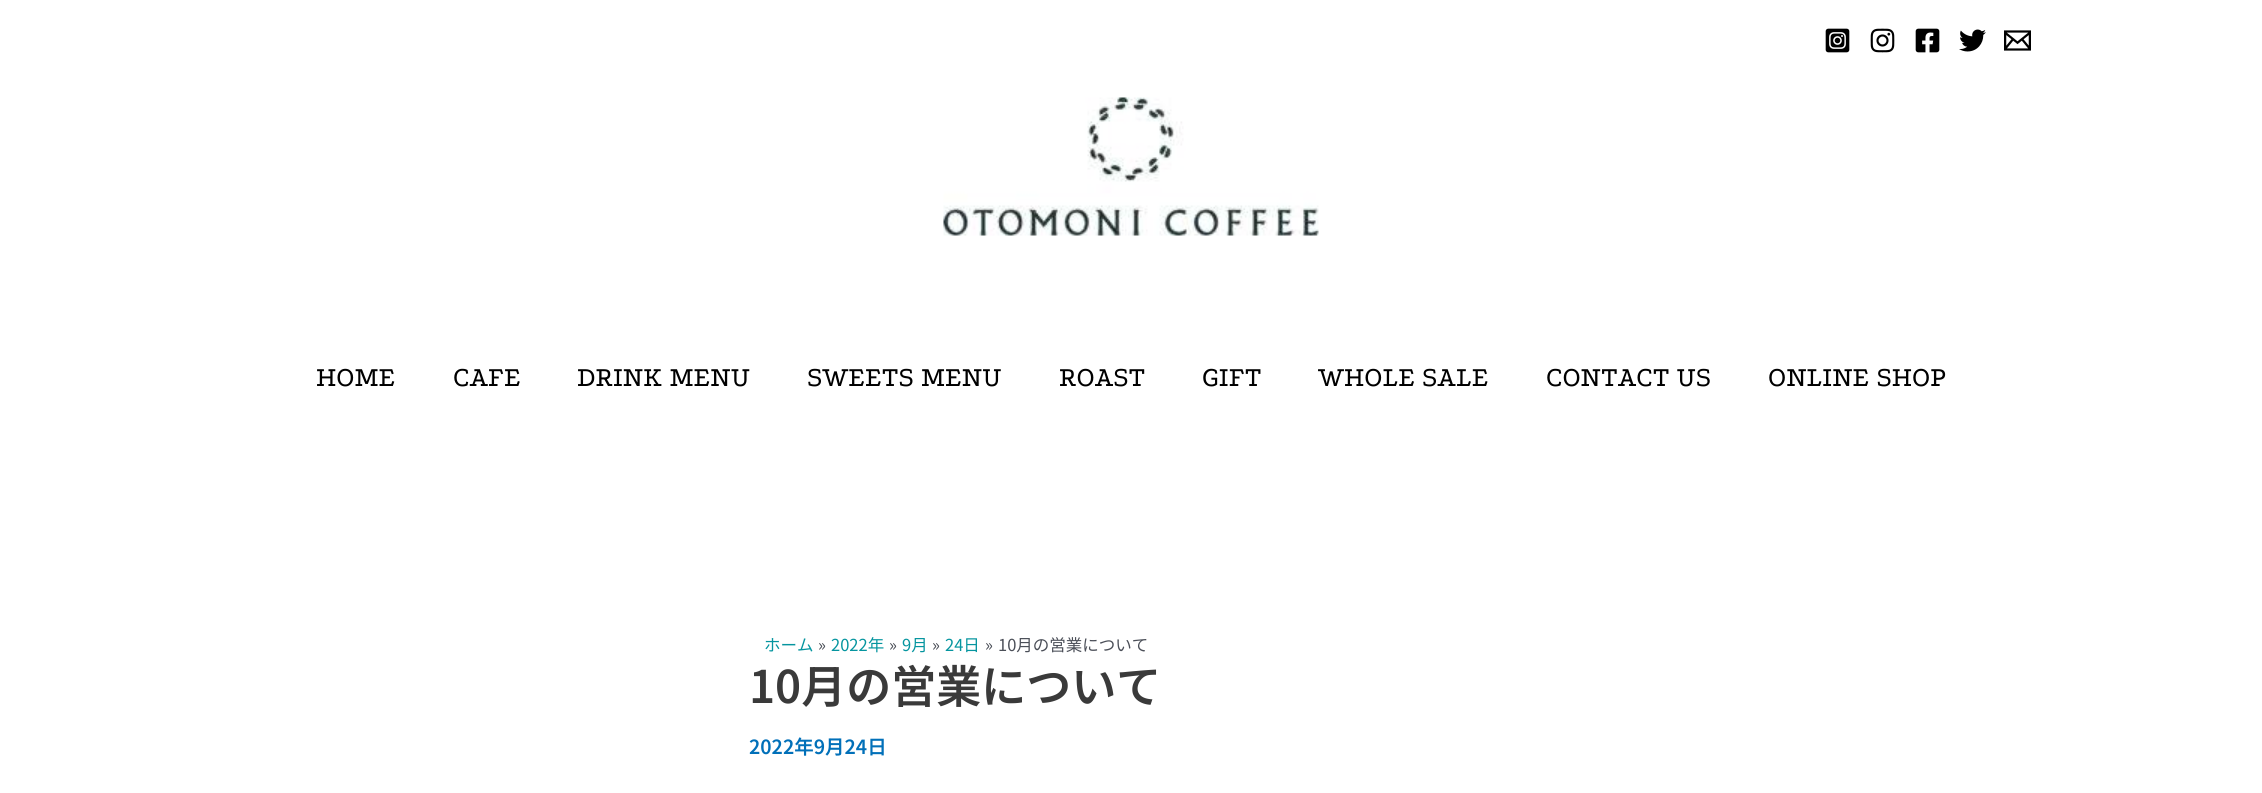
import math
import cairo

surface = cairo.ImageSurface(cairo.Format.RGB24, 2262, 793)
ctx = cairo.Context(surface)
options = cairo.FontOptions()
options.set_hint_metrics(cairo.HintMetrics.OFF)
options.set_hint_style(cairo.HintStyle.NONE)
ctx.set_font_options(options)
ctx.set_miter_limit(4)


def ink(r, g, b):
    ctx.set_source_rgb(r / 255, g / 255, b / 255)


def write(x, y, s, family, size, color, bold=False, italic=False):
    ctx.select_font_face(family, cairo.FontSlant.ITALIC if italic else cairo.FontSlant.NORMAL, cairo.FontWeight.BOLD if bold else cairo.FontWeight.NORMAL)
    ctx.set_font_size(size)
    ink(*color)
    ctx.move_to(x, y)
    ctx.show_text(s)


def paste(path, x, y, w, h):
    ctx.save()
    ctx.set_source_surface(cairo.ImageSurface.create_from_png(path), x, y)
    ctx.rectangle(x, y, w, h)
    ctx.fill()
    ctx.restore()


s1 = dict(family="Podkova", size=28.5, color=(0, 0, 0))
s2 = dict(family="Noto Sans JP", size=16.5, color=(5, 149, 159))
s3 = dict(family="Noto Sans JP", size=16.5, color=(75, 79, 88))
s4 = dict(family="Noto Sans JP SemiBold", size=45, color=(58, 58, 58))
s5 = dict(family="Noto Sans JP SemiBold", size=19.5, color=(1, 112, 185))

ink(255, 255, 255)
ctx.paint()
paste("pic1.png", 1825, 28, 25, 25)
paste("pic2.png", 1870, 28, 25, 25)
paste("pic3.png", 1915, 28, 25, 25)
paste("pic4.png", 1959, 29, 27, 23)
paste("pic5.png", 2004, 30, 27, 21)
paste("pic6.png", 943, 97, 376, 139)
write(316, 386, "HOME", **s1)
write(453, 386, "CAFE", **s1)
write(577, 386, "DRINK MENU", **s1)
write(807, 386, "SWEETS MENU", **s1)
write(1059, 386, "ROAST", **s1)
write(1202, 386, "GIFT", **s1)
write(1318, 386, "WHOLE SALE", **s1)
write(1546, 386, "CONTACT US", **s1)
write(1768, 386, "ONLINE SHOP", **s1)
write(764, 651, "ホーム", **s2)
write(818, 651, "»", **s3)
write(831, 651, "2022年", **s2)
write(889, 651, "»", **s3)
write(902, 651, "9月", **s2)
write(932, 651, "»", **s3)
write(945, 651, "24日", **s2)
write(985, 651, "»", **s3)
write(998, 651, "10月の営業について", **s3)
write(749, 703, "10月の営業について", **s4)
write(749, 754, "2022年9月24日", **s5)
surface.write_to_png("screenshot.png")
